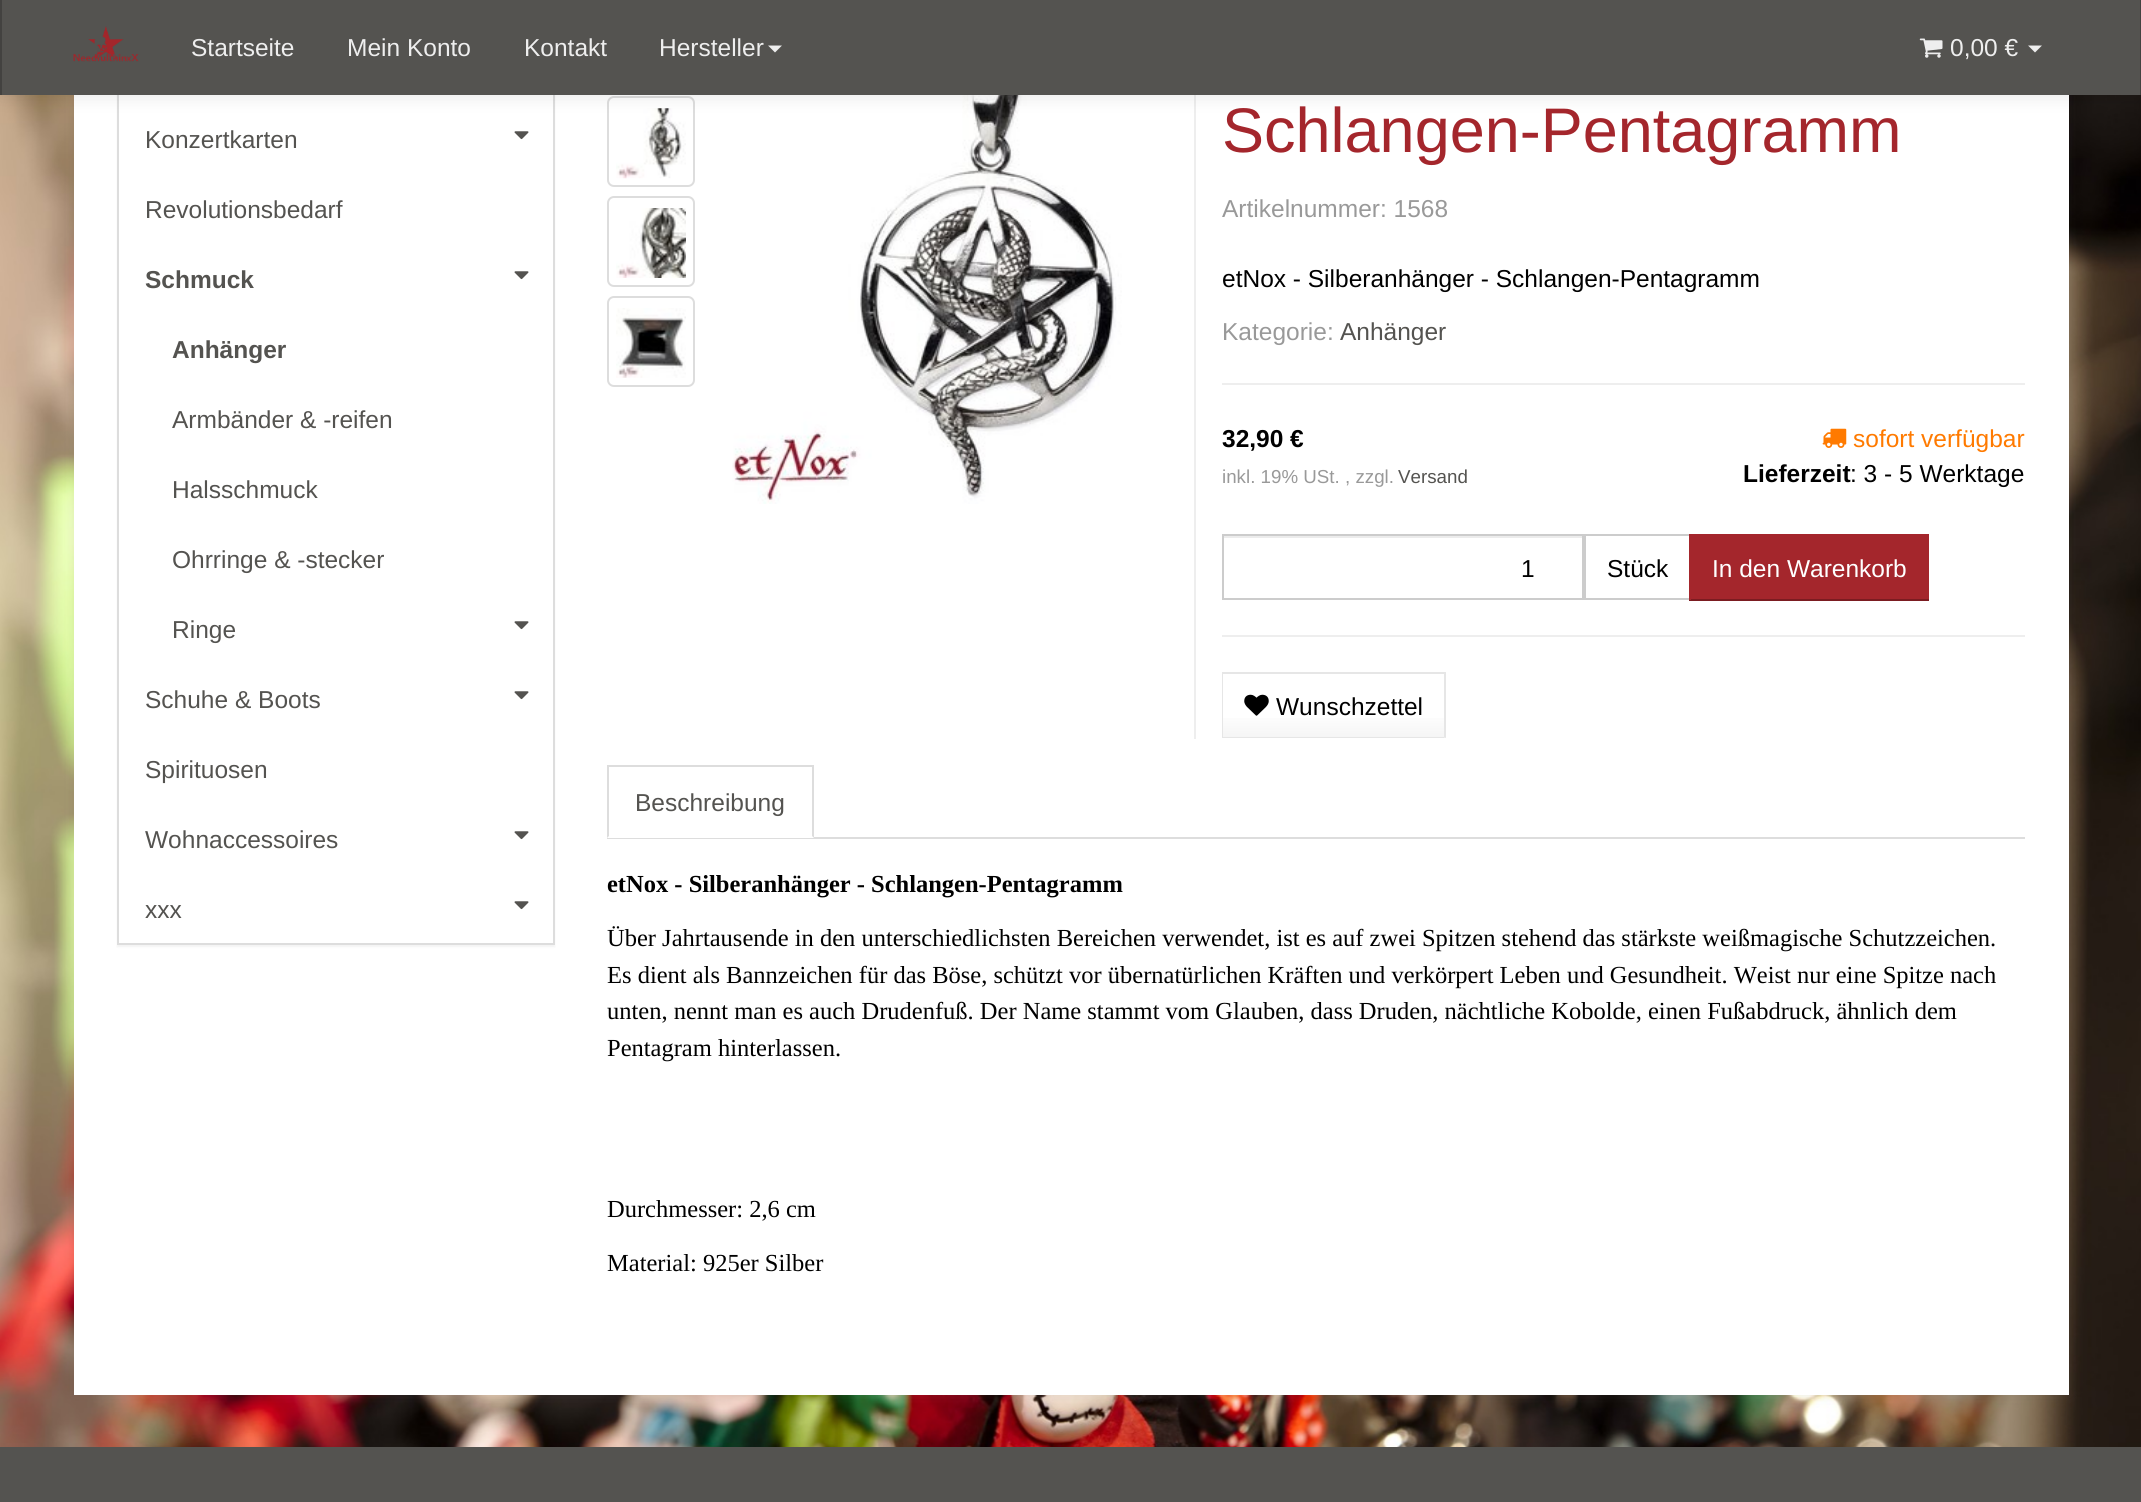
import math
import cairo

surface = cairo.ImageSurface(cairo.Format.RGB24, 2141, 1502)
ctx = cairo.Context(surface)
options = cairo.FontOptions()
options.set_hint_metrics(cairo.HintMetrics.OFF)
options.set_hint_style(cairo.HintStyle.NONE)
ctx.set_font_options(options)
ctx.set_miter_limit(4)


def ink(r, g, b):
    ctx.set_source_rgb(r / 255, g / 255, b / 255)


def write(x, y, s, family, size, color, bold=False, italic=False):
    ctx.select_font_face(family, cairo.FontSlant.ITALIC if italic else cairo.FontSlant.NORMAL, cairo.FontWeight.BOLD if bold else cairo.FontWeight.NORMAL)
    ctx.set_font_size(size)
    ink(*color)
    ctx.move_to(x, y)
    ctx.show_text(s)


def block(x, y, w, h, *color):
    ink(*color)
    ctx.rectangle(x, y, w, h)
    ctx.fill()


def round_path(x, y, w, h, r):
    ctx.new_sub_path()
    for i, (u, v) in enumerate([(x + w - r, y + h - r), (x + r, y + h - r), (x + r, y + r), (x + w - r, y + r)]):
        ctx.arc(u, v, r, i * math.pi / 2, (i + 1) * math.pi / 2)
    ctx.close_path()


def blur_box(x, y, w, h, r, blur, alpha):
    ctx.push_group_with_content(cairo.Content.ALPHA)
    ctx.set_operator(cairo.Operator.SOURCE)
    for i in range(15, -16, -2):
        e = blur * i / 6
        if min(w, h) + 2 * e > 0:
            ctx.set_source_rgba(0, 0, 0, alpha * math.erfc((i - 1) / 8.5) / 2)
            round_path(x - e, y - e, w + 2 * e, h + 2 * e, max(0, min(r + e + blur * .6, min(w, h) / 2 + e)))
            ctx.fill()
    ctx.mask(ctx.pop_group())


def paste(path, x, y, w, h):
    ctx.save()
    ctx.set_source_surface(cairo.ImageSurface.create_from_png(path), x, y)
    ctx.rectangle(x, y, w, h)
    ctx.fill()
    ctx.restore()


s1 = dict(family="Liberation Sans", size=24.5, color=(238, 238, 238))
s2 = dict(family="Liberation Sans", size=24.5, color=(84, 83, 80))
s3 = dict(family="Liberation Sans", size=24.5, color=(84, 83, 80), bold=True)
s4 = dict(family="Liberation Sans", size=63, color=(164, 38, 44))
s5 = dict(family="Liberation Sans", size=24.5, color=(153, 153, 153))
s6 = dict(family="Liberation Sans", size=24.5, color=(0, 0, 0))
s7 = dict(family="Liberation Sans", size=24.5, color=(0, 0, 0), bold=True)
s8 = dict(family="Liberation Sans", size=18.75, color=(153, 153, 153))
s9 = dict(family="Liberation Sans", size=18.75, color=(84, 83, 80))
s10 = dict(family="Liberation Sans", size=24.5, color=(255, 122, 0))
s11 = dict(family="Liberation Sans", size=24.5, color=(255, 255, 255))
s12 = dict(family="Liberation Serif", size=24.5, color=(0, 0, 0), bold=True)
s13 = dict(family="Liberation Serif", size=24.5, color=(0, 0, 0))

ink(255, 255, 255)
ctx.paint()
paste("pic10.png", 0, 95, 2141, 1352)
ink(106, 106, 106)
blur_box(72, -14, 1998, 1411, 0, 4.5, 0.1)
block(74, 95, 1995, 1300, 255, 255, 255)
ink(0, 0, 0)
blur_box(117, -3, 438, 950, 0, 1, 0.05)
block(119, 95, 434, 848, 255, 255, 255)
ctx.rectangle(118, -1, 436, 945)
ink(221, 221, 221)
ctx.stroke()
round_path(608, 97, 86, 89, 6)
ctx.stroke()
paste("pic4.png", 616, 108, 70, 71)
paste("pic7.png", 732, 95, 390, 409)
block(1194, 95, 2, 644, 238, 238, 238)
ink(0, 0, 0)
blur_box(0, 2, 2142, 94, 0, 9, 0.1)
block(2, 0, 2138, 95, 84, 83, 80)
block(2140, 0, 1, 95, 67, 66, 64)
block(0, 0, 2, 95, 67, 66, 64)
paste("pic1.png", 73, 26, 66, 36)
write(191, 56, "Startseite", **s1)
write(347, 56, "Mein Konto", **s1)
write(524, 56, "Kontakt", **s1)
write(659, 56, "Hersteller", **s1)
ctx.new_path()
ctx.move_to(768, 45.5)
ctx.line_to(782, 45.5)
ctx.line_to(775, 52.5)
ctx.close_path()
ctx.fill()
paste("pic2.png", 1919, 38, 24, 20)
write(1950, 56, "0,00 €", **s1)
ctx.new_path()
ctx.move_to(2028, 45.5)
ctx.line_to(2042, 45.5)
ctx.line_to(2035, 52.5)
ctx.close_path()
ctx.fill()
write(145, 148, "Konzertkarten", **s2)
paste("pic3.png", 514, 131, 15, 9)
write(145, 218, "Revolutionsbedarf", **s2)
write(145, 288, "Schmuck", **s3)
paste("pic3.png", 514, 271, 15, 9)
write(172, 358, "Anhänger", **s3)
write(172, 428, "Armbänder & -reifen", **s2)
write(172, 498, "Halsschmuck", **s2)
write(172, 568, "Ohrringe & -stecker", **s2)
write(172, 638, "Ringe", **s2)
paste("pic3.png", 514, 621, 15, 9)
write(145, 708, "Schuhe & Boots", **s2)
paste("pic3.png", 514, 691, 15, 9)
write(145, 778, "Spirituosen", **s2)
write(145, 848, "Wohnaccessoires", **s2)
paste("pic3.png", 514, 831, 15, 9)
write(145, 918, "xxx", **s2)
paste("pic3.png", 514, 901, 15, 9)
round_path(608, 197, 86, 89, 6)
ink(221, 221, 221)
ctx.stroke()
paste("pic5.png", 616, 208, 70, 70)
round_path(608, 297, 86, 89, 6)
ctx.stroke()
paste("pic6.png", 616, 308, 70, 70)
write(1222, 152, "Schlangen-Pentagramm", **s4)
write(1222, 217, "Artikelnummer: 1568", **s5)
write(1222, 287, "etNox - Silberanhänger - Schlangen-Pentagramm", **s6)
write(1222, 340, "Kategorie:", **s5)
write(1340, 340, "Anhänger", **s2)
block(1222, 383, 803, 2, 238, 238, 238)
write(1222, 447, "32,90 €", **s7)
write(1222, 483, "inkl. 19% USt. , zzgl.", **s8)
write(1398, 483, "Versand", **s9)
paste("pic8.png", 1822, 428, 25, 20)
write(1853, 447, "sofort verfügbar", **s10)
write(1743, 482, "Lieferzeit", **s7)
write(1850, 482, ": 3 - 5 Werktage", **s6)
block(1223, 536, 359, 2, 236, 236, 236)
ctx.rectangle(1223, 535, 360, 64)
ink(204, 204, 204)
ctx.stroke()
write(1521, 577, "1", **s6)
ctx.rectangle(1585, 535, 105, 64)
ink(204, 204, 204)
ctx.stroke()
write(1607, 577, "Stück", **s6)
block(1691, 534, 238, 65, 164, 38, 44)
block(1689, 599, 240, 2, 123, 28, 33)
block(1689, 534, 2, 66, 164, 38, 44)
write(1712, 577, "In den Warenkorb", **s11)
block(1222, 635, 803, 2, 238, 238, 238)
gradient = cairo.LinearGradient(1334, 674, 1334, 737)
gradient.add_color_stop_rgba(0, 1, 1, 1, 1)
gradient.add_color_stop_rgba(0.6, 1, 1, 1, 1)
gradient.add_color_stop_rgba(1, 0.961, 0.961, 0.961, 1)
ctx.set_source(gradient)
ctx.rectangle(1223, 718, 221, 19)
ctx.fill()
ink(230, 230, 230)
ctx.new_path()
ctx.move_to(1222, 672)
ctx.line_to(1446, 672)
ctx.line_to(1444, 674)
ctx.line_to(1223, 674)
ctx.close_path()
ctx.fill()
ctx.set_source_rgba(0, 0, 0, 0.1)
ctx.new_path()
ctx.move_to(1446, 672)
ctx.line_to(1446, 738)
ctx.line_to(1444, 737)
ctx.line_to(1444, 674)
ctx.close_path()
ctx.fill()
ink(230, 230, 230)
ctx.new_path()
ctx.move_to(1446, 738)
ctx.line_to(1222, 738)
ctx.line_to(1223, 737)
ctx.line_to(1444, 737)
ctx.close_path()
ctx.fill()
ctx.set_source_rgba(0, 0, 0, 0.1)
ctx.new_path()
ctx.move_to(1222, 738)
ctx.line_to(1222, 672)
ctx.line_to(1223, 674)
ctx.line_to(1223, 737)
ctx.close_path()
ctx.fill()
paste("pic9.png", 1244, 694, 25, 22)
write(1276, 715, "Wunschzettel", **s6)
block(607, 837, 1418, 2, 221, 221, 221)
block(607, 837, 207, 1, 255, 255, 255)
block(607, 765, 207, 2, 221, 221, 221)
ctx.new_path()
ctx.move_to(814, 765)
ctx.line_to(814, 838)
ctx.line_to(812, 836)
ctx.line_to(812, 766)
ctx.close_path()
ctx.fill()
ctx.new_path()
ctx.move_to(607, 838)
ctx.line_to(607, 765)
ctx.line_to(609, 766)
ctx.line_to(609, 836)
ctx.close_path()
ctx.fill()
write(635, 811, "Beschreibung", **s2)
write(607, 892, "etNox - Silberanhänger - Schlangen-Pentagramm", **s12)
write(607, 946, "Über Jahrtausende in den unterschiedlichsten Bereichen verwendet, ist es auf zwei Spitzen stehend das stärkste weißmagische Schutzzeichen.", **s13)
write(607, 983, "Es dient als Bannzeichen für das Böse, schützt vor übernatürlichen Kräften und verkörpert Leben und Gesundheit. Weist nur eine Spitze nach", **s13)
write(607, 1019, "unten, nennt man es auch Drudenfuß. Der Name stammt vom Glauben, dass Druden, nächtliche Kobolde, einen Fußabdruck, ähnlich dem", **s13)
write(607, 1056, "Pentagram hinterlassen.", **s13)
write(607, 1217, "Durchmesser: 2,6 cm", **s13)
write(607, 1271, "Material: 925er Silber", **s13)
block(0, 1447, 2141, 55, 84, 83, 80)
surface.write_to_png("screenshot.png")
